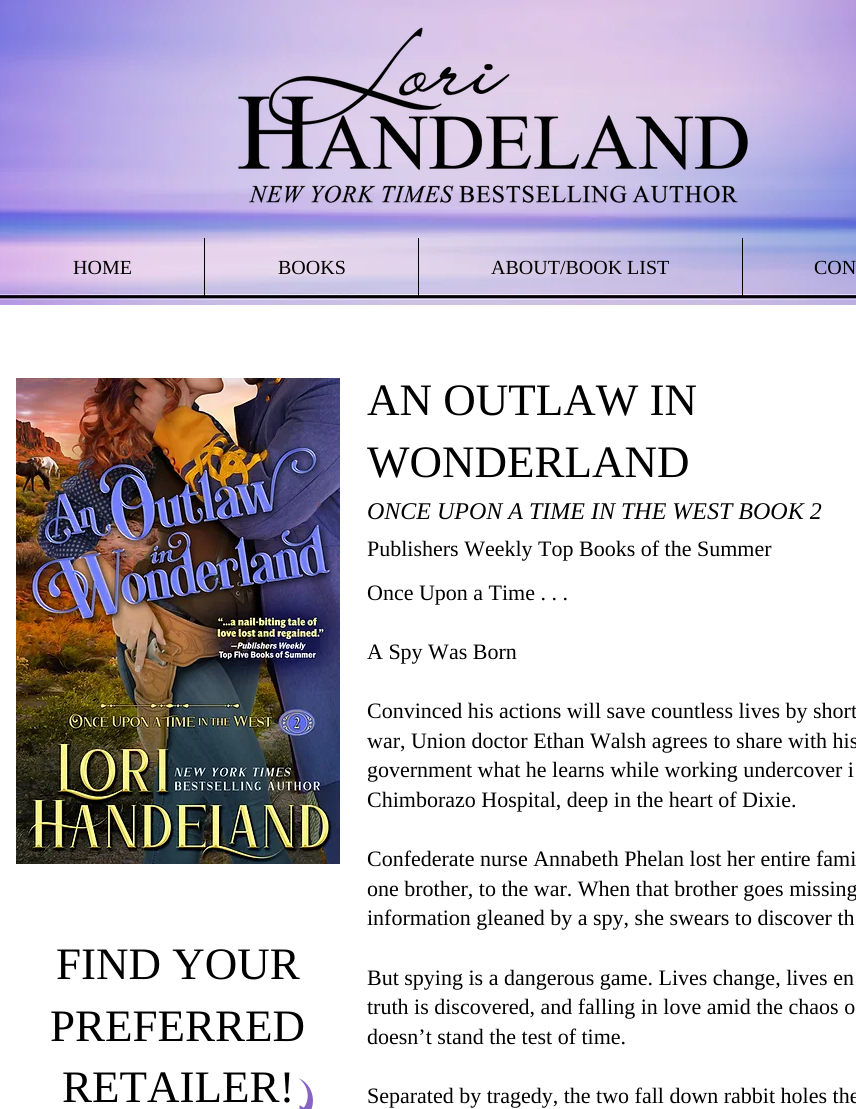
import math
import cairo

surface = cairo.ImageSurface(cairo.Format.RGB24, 856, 1109)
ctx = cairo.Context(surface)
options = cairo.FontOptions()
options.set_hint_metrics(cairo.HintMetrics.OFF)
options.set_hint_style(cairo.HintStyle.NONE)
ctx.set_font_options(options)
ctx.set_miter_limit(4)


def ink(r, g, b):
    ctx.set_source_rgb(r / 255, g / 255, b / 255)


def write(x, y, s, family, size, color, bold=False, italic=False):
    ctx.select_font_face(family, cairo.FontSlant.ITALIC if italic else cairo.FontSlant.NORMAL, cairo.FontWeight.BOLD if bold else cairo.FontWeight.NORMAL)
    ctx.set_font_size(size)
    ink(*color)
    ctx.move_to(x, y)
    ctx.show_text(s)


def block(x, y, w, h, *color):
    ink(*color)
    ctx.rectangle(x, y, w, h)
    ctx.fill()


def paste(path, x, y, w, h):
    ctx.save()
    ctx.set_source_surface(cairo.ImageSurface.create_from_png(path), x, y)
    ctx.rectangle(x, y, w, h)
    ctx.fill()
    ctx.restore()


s1 = dict(family="Liberation Serif", size=20, color=(0, 0, 0))
s2 = dict(family="Liberation Serif", size=45, color=(0, 0, 0))
s3 = dict(family="Liberation Serif", size=24, color=(0, 0, 0), italic=True)
s4 = dict(family="Liberation Serif", size=22, color=(0, 0, 0))

ink(255, 255, 255)
ctx.paint()
paste("pic1.png", 0, 0, 856, 305)
paste("pic2.png", 238, 27, 510, 176)
write(73, 274, "HOME", **s1)
block(204, 238, 1, 58, 0, 0, 0)
write(278, 274, "BOOKS", **s1)
block(418, 238, 1, 58, 0, 0, 0)
write(491, 274, "ABOUT/BOOK LIST", **s1)
block(742, 238, 1, 58, 0, 0, 0)
write(814, 274, "CON", **s1)
paste("pic3.png", 16, 378, 324, 486)
write(367, 415, "AN OUTLAW IN", **s2)
write(367, 477, "WONDERLAND", **s2)
write(367, 519, "ONCE UPON A TIME IN THE WEST BOOK 2", **s3)
write(367, 556, "Publishers Weekly Top Books of the Summer", **s4)
write(56, 979, "FIND YOUR", **s2)
write(50, 1041, "PREFERRED", **s2)
write(62, 1102, "RETAILER!", **s2)
paste("pic4.png", 298, 1078, 15, 31)
write(367, 600, "Once Upon a Time . . .", **s4)
write(367, 659, "A Spy Was Born", **s4)
write(367, 718, "Convinced his actions will save countless lives by short", **s4)
write(367, 748, "war, Union doctor Ethan Walsh agrees to share with his", **s4)
write(367, 777, "government what he learns while working undercover i", **s4)
write(367, 807, "Chimborazo Hospital, deep in the heart of Dixie.", **s4)
write(367, 866, "Confederate nurse Annabeth Phelan lost her entire fami", **s4)
write(367, 896, "one brother, to the war. When that brother goes missing", **s4)
write(367, 925, "information gleaned by a spy, she swears to discover th", **s4)
write(367, 985, "But spying is a dangerous game. Lives change, lives en", **s4)
write(367, 1014, "truth is discovered, and falling in love amid the chaos o", **s4)
write(367, 1044, "doesn’t stand the test of time.", **s4)
write(367, 1103, "Separated by tragedy, the two fall down rabbit holes the", **s4)
surface.write_to_png("screenshot.png")
